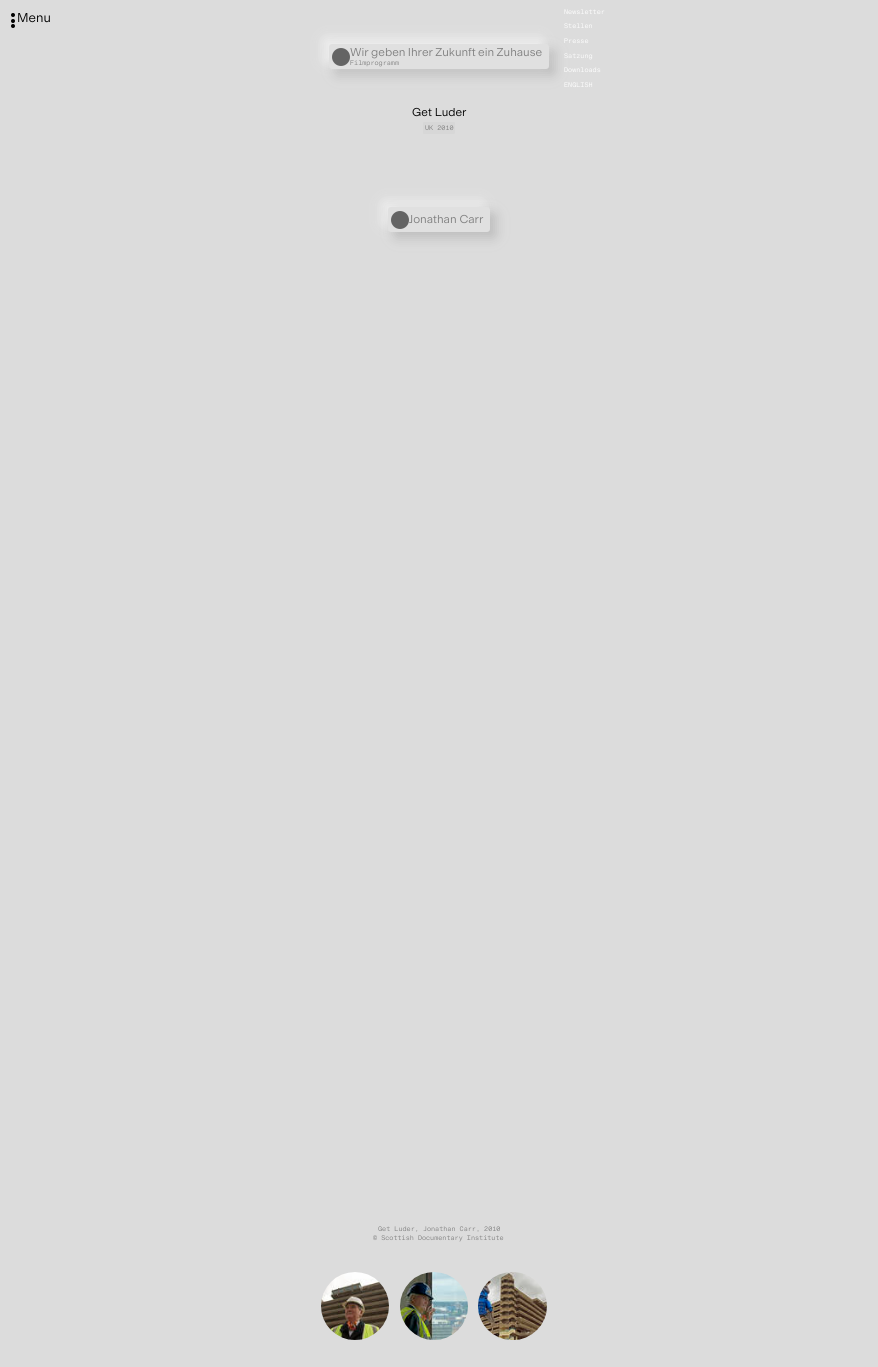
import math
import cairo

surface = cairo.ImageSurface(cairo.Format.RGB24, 878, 1367)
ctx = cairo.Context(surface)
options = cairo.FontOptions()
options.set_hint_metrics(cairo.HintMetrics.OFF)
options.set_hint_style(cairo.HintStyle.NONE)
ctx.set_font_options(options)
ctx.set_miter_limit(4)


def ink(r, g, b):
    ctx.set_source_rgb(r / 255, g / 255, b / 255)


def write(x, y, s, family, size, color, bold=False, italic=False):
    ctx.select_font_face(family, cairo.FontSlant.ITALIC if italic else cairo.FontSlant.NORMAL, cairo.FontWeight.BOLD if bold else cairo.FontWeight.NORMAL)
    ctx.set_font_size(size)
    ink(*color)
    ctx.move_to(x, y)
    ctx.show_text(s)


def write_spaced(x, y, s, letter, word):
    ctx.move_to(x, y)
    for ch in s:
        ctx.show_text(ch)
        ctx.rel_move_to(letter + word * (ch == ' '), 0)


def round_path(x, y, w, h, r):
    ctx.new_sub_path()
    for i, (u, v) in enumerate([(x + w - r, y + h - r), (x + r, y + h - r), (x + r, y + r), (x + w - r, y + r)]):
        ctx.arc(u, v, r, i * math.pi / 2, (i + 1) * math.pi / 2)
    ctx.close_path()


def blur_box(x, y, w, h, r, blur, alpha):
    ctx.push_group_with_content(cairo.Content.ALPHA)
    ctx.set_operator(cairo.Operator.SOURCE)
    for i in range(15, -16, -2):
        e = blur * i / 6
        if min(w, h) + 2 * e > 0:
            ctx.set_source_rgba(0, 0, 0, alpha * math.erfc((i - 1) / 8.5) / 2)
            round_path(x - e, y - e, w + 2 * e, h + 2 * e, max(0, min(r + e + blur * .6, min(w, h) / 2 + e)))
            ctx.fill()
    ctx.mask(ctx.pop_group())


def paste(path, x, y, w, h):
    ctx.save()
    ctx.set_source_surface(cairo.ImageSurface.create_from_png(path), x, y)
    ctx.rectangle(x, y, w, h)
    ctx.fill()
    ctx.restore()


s1 = dict(family="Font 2 Light", size=13, color=(0, 0, 0))
s2 = dict(family="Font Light", size=6.8, color=(255, 255, 255))
s3 = dict(family="Font Light", size=6.8, color=(128, 128, 128))
s4 = dict(family="Font 2 Light", size=11.6, color=(0, 0, 0))
s5 = dict(family="Font 2 Light", size=11.6, color=(128, 128, 128))

ink(220, 220, 220)
ctx.paint()
ink(0, 0, 0)
ctx.arc(13, 15, 2, 0, 2 * math.pi)
ctx.fill()
ctx.arc(13, 21, 2, 0, 2 * math.pi)
ctx.fill()
ctx.arc(13, 26, 2, 0, 2 * math.pi)
ctx.fill()
write(17, 22, "Menu", **s1)
write(564, 14, "Newsletter", **s2)
write(564, 28, "Stellen", **s2)
ink(190, 190, 190)
blur_box(335, 50, 220, 25, 3, 6, 1)
write(564, 43, "Presse", **s2)
write(564, 58, "Satzung", **s2)
write(564, 72, "Downloads", **s2)
write(564, 87, "ENGLISH", **s2)
ink(238, 238, 238)
blur_box(323, 38, 220, 25, 3, 6, 1)
ink(224, 224, 224)
round_path(329, 44, 220, 25, 3)
ctx.fill()
ink(100, 100, 100)
ctx.arc(341, 57, 9, 0, 2 * math.pi)
ctx.fill()
ctx.select_font_face("Font 2 Light")
ctx.set_font_size(11.6)
ink(128, 128, 128)
write_spaced(350, 56, "Wir geben Ihrer Zukunft ein Zuhause", 0, -0.5)
write(350, 65, "Filmprogramm", **s3)
write(412, 116, "Get Luder", **s4)
ink(215, 215, 215)
round_path(423, 122, 32, 12, 1)
ctx.fill()
write(425, 130, "UK 2010", **s3)
ink(238, 238, 238)
blur_box(382, 201, 102, 25, 3, 6, 1)
ink(190, 190, 190)
blur_box(394, 213, 102, 25, 3, 6, 1)
ink(224, 224, 224)
round_path(388, 207, 102, 25, 3)
ctx.fill()
ink(100, 100, 100)
ctx.arc(400, 220, 9, 0, 2 * math.pi)
ctx.fill()
write(409, 223, "Jonathan Carr", **s5)
write(378, 1231, "Get Luder, Jonathan Carr, 2010", **s3)
write(373, 1240, "© Scottish Documentary Institute", **s3)
paste("pic1.png", 321, 1272, 68, 68)
paste("pic2.png", 400, 1272, 68, 68)
paste("pic3.png", 478, 1272, 69, 68)
surface.write_to_png("screenshot.png")
